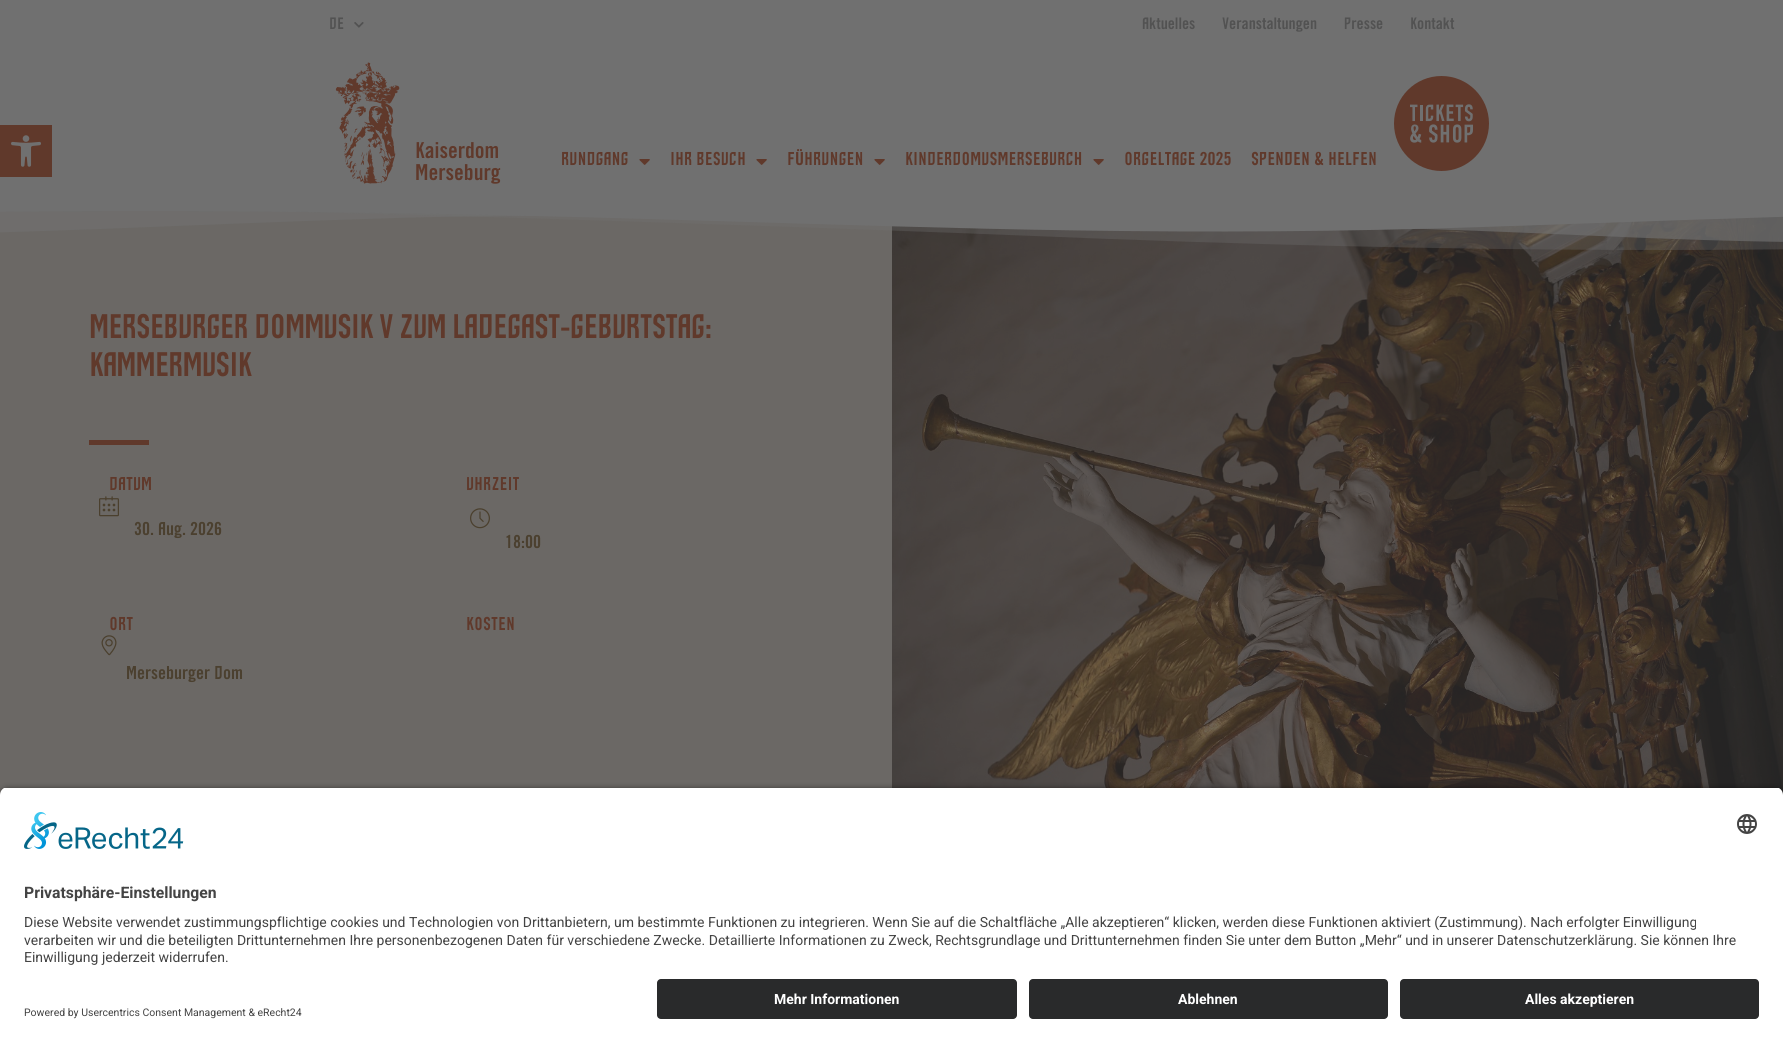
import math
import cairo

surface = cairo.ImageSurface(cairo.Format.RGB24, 1783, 1043)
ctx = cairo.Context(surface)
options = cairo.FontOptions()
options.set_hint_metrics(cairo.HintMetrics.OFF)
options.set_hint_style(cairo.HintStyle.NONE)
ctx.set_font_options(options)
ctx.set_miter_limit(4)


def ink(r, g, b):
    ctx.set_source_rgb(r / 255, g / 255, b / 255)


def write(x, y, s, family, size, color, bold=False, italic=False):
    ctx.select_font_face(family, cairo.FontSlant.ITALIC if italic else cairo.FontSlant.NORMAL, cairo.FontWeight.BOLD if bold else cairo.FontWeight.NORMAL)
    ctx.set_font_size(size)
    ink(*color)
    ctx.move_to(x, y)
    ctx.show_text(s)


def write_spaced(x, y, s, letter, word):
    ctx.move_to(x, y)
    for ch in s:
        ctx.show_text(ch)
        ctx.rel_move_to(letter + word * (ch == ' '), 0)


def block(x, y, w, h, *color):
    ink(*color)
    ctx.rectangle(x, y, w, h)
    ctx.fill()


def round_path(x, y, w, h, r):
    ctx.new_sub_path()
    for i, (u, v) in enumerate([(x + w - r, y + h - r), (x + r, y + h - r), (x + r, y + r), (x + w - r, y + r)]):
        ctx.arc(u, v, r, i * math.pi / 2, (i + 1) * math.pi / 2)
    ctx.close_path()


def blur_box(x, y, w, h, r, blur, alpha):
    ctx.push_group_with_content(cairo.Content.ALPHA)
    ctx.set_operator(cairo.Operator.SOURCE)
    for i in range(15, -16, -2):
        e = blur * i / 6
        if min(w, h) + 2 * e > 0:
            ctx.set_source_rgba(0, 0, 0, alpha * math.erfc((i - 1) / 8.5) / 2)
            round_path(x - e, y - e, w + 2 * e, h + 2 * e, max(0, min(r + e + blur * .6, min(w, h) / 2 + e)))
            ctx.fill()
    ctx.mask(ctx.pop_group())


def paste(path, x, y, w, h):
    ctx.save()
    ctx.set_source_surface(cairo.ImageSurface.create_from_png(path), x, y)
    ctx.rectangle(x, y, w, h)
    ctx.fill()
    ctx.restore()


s1 = dict(family="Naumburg", size=16, color=(82, 82, 82))
s2 = dict(family="Naumburg", size=22, color=(96, 57, 43))
s3 = dict(family="Naumburg", size=18, color=(96, 57, 43))
s4 = dict(family="Naumburg", size=18, color=(75, 64, 47))
s5 = dict(family="Roboto", size=15.75, color=(68, 68, 68), bold=True)
s6 = dict(family="Roboto", size=14, color=(68, 68, 68))
s7 = dict(family="Roboto", size=14, color=(255, 255, 255), bold=True)
s8 = dict(family="Roboto", size=10.5, color=(68, 68, 68))

ink(112, 112, 112)
ctx.paint()
block(0, 125, 52, 52, 96, 57, 43)
paste("pic1.png", 11, 135, 30, 32)
write(329, 29, "DE", **s1)
paste("pic2.png", 354, 22, 10, 6)
write(1142, 29, "Aktuelles", **s1)
write(1222, 29, "Veranstaltungen", **s1)
write(1344, 29, "Presse", **s1)
write(1410, 29, "Kontakt", **s1)
paste("pic3.png", 335, 62, 65, 122)
write(415, 158, "Kaiserdom", **s2)
write(415, 180, "Merseburg", **s2)
write(561, 165, "RUNDGANG", **s3)
paste("pic4.png", 639, 159, 11, 6)
write(670, 165, "IHR BESUCH", **s3)
paste("pic4.png", 756, 159, 11, 6)
write(787, 165, "FÜHRUNGEN", **s3)
paste("pic4.png", 874, 159, 11, 6)
write(905, 165, "KINDERDOMUSMERSEBURCH", **s3)
paste("pic4.png", 1093, 159, 11, 6)
write(1124, 165, "ORGELTAGE 2025", **s3)
write(1251, 165, "SPENDEN & HELFEN", **s3)
paste("pic5.png", 1394, 76, 95, 95)
block(0, 211, 892, 584, 107, 104, 101)
paste("pic10.png", 892, 216, 891, 579)
paste("pic6.png", 0, 206, 1783, 44)
ctx.set_font_size(33)
ink(96, 57, 43)
write_spaced(89, 338, "MERSEBURGER DOMMUSIK V ZUM LADEGAST-GEBURTSTAG:", -1, 0)
write_spaced(89, 376, "KAMMERMUSIK", -1, 0)
block(89, 440, 60, 5, 96, 57, 43)
write(109, 490, "DATUM", **s3)
paste("pic7.png", 99, 496, 20, 21)
write(134, 535, "30. Aug. 2026", **s4)
write(466, 490, "UHRZEIT", **s3)
paste("pic8.png", 470, 508, 20, 21)
write(505, 548, "18:00", **s4)
write(109, 630, "ORT", **s3)
paste("pic9.png", 101, 635, 16, 21)
write(126, 679, "Merseburger Dom", **s4)
write(466, 630, "KOSTEN", **s3)
ink(0, 0, 0)
blur_box(0, 790, 1783, 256, 8, 3.5, 0.8)
ctx.save()
ctx.new_path()
ctx.move_to(8, 787)
ctx.line_to(1775, 787)
ctx.curve_to(1779.5, 787, 1783, 790.5, 1783, 795)
ctx.line_to(1783, 971)
ctx.line_to(0, 971)
ctx.line_to(0, 795)
ctx.curve_to(0, 790.5, 3.5, 787, 8, 787)
ctx.close_path()
ctx.clip()
block(0, 788, 1783, 183, 255, 255, 255)
ctx.restore()
paste("pic11.png", 24, 812, 160, 37)
paste("pic12.png", 1737, 814, 20, 20)
write(24, 898, "Privatsphäre-Einstellungen", **s5)
write(24, 927, "Diese Website verwendet zustimmungspflichtige cookies und Technologien von Drittanbietern, um bestimmte Funktionen zu integrieren. Wenn Sie auf die Schaltfläche „Alle akzeptieren“ klicken, werden diese Funktionen aktiviert (Zustimmung). Nach erfolgter Einwilligung", **s6)
write(24, 945, "verarbeiten wir und die beteiligten Drittunternehmen Ihre personenbezogenen Daten für verschiedene Zwecke. Detaillierte Informationen zu Zweck, Rechtsgrundlage und Drittunternehmen finden Sie unter dem Button „Mehr“ und in unserer Datenschutzerklärung. Sie können Ihre", **s6)
write(24, 962, "Einwilligung jederzeit widerrufen.", **s6)
block(0, 971, 1783, 72, 255, 255, 255)
ink(41, 42, 43)
round_path(657, 979, 360, 40, 4)
ctx.fill()
write(774, 1004, "Mehr Informationen", **s7)
ink(41, 42, 43)
round_path(1029, 979, 359, 40, 4)
ctx.fill()
write(1178, 1004, "Ablehnen", **s7)
ink(41, 42, 43)
round_path(1400, 979, 359, 40, 4)
ctx.fill()
write(1525, 1004, "Alles akzeptieren", **s7)
write(24, 1016, "Powered by Usercentrics Consent Management & eRecht24", **s8)
surface.write_to_png("screenshot.png")
